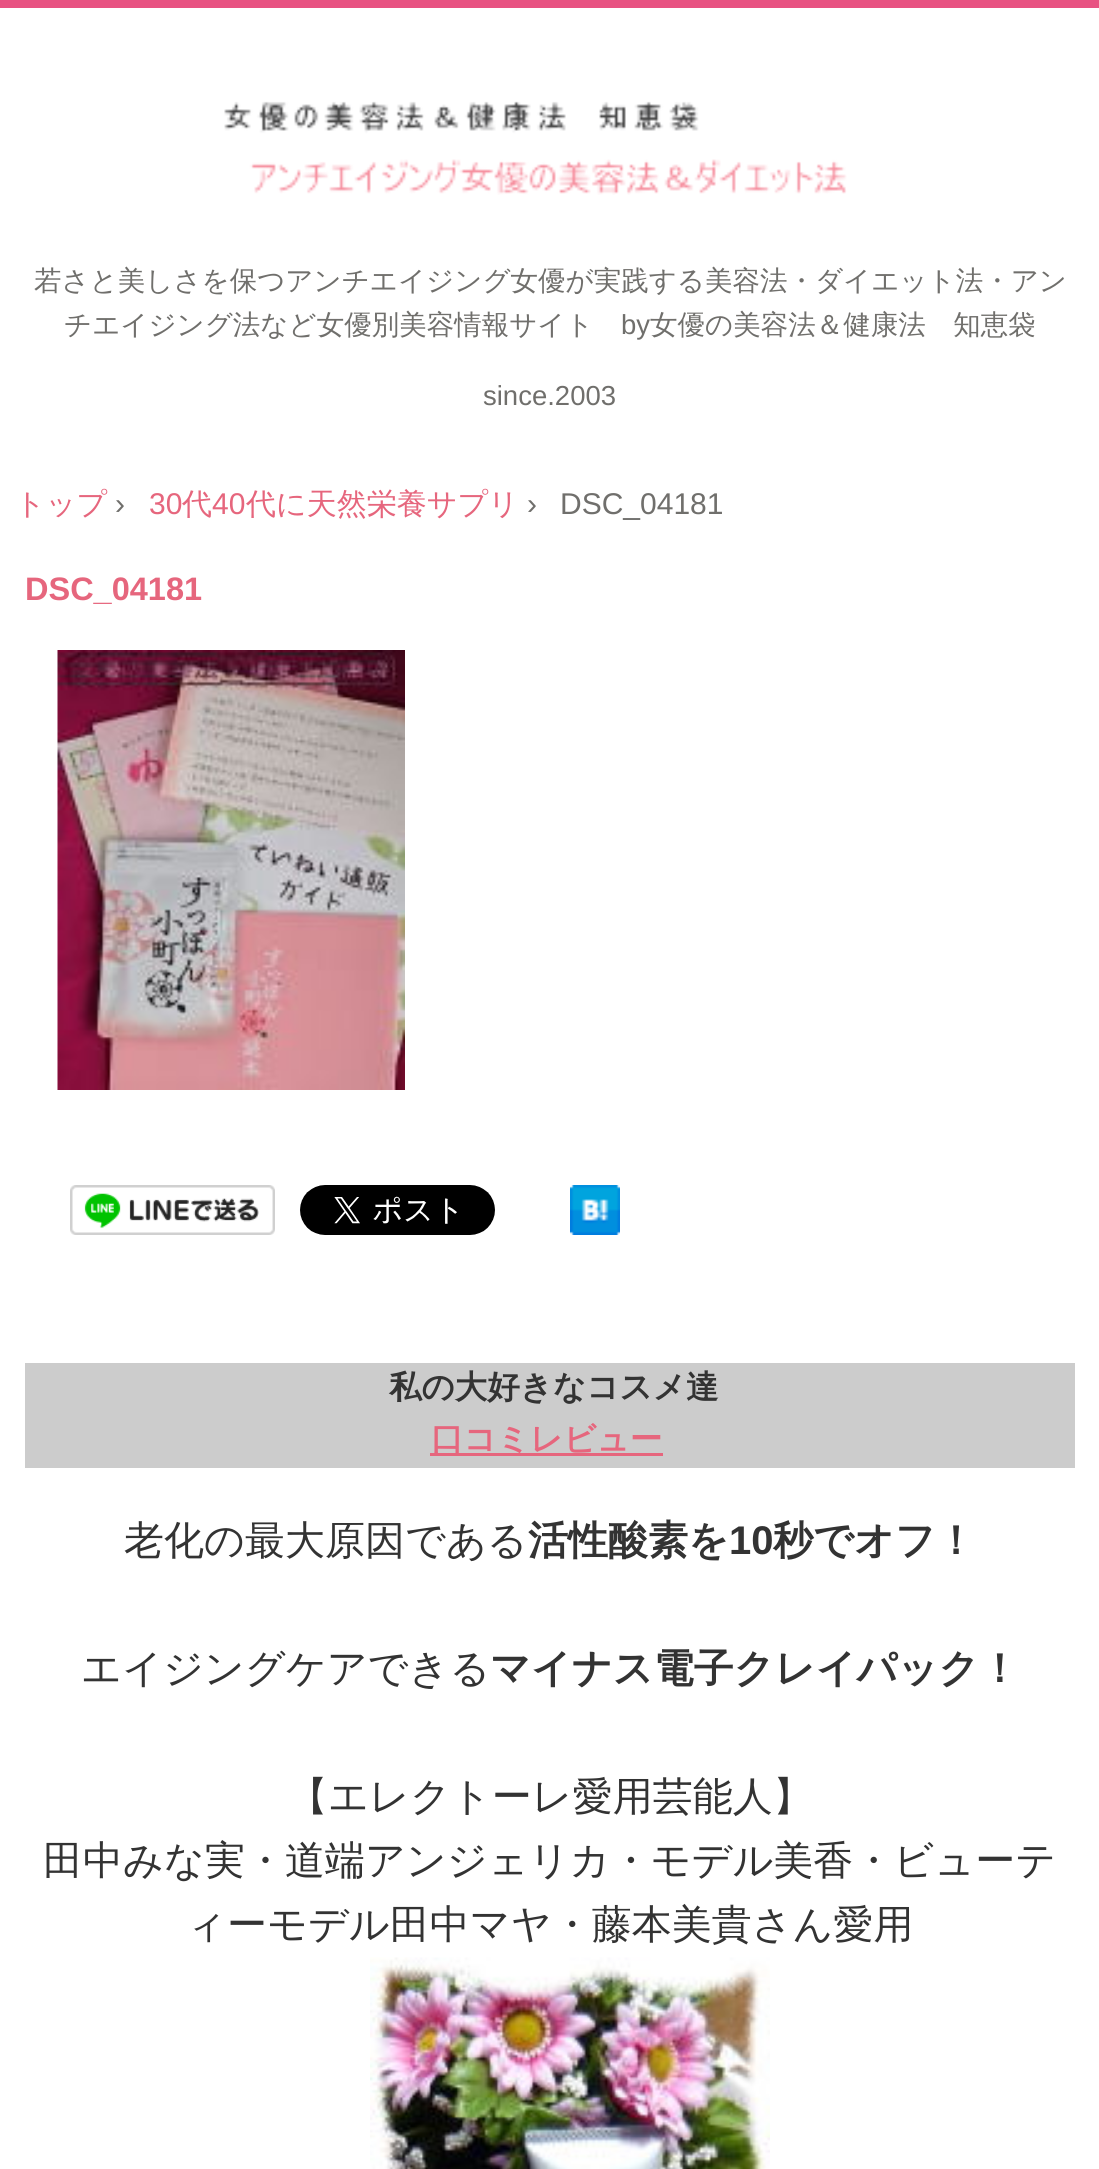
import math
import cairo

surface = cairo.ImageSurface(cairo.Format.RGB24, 1099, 2169)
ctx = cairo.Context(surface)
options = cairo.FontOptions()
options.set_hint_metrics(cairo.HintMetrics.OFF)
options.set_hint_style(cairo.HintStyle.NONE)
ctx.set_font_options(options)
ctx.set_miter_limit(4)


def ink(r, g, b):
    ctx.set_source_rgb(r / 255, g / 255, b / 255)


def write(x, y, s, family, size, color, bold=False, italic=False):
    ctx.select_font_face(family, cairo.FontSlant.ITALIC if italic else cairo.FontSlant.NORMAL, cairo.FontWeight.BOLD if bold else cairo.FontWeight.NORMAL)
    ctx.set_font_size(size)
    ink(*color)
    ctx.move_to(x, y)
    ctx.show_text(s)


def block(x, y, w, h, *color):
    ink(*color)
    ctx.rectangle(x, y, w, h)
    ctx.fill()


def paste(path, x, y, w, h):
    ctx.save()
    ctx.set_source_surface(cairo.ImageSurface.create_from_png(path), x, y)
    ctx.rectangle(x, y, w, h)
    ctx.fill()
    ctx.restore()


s1 = dict(family="WenQuanYi Zen Hei Medium", size=27.5, color=(112, 111, 108))
s2 = dict(family="Liberation Sans", size=27.5, color=(112, 111, 108))
s3 = dict(family="WenQuanYi Zen Hei Medium", size=30, color=(230, 102, 125))
s4 = dict(family="Liberation Sans", size=30, color=(112, 111, 108))
s5 = dict(family="Liberation Sans", size=30, color=(230, 102, 125))
s6 = dict(family="Liberation Sans", size=32.5, color=(230, 102, 125), bold=True)
s7 = dict(family="WenQuanYi Zen Hei", size=32.5, color=(51, 51, 51), bold=True)
s8 = dict(family="WenQuanYi Zen Hei", size=32.5, color=(230, 102, 125), bold=True)
s9 = dict(family="WenQuanYi Zen Hei Medium", size=40, color=(51, 51, 51))
s10 = dict(family="WenQuanYi Zen Hei", size=40, color=(51, 51, 51), bold=True)
s11 = dict(family="Liberation Sans", size=40, color=(51, 51, 51), bold=True)

ink(255, 255, 255)
ctx.paint()
block(0, 0, 1099, 8, 232, 82, 130)
paste("pic1.png", 224, 101, 623, 94)
write(34, 290, "若さと美しさを保つアンチエイジング女優が実践する美容法・ダイエット法・アン", **s1)
write(64, 334, "チエイジング法など女優別美容情報サイト", **s1)
write(621, 334, "by", **s2)
write(650, 334, "女優の美容法＆健康法　知恵袋", **s1)
write(483, 405, "since.2003", **s2)
write(15, 514, "トップ", **s3)
write(115, 514, "›", **s4)
write(149, 514, "30", **s5)
write(182, 514, "代", **s3)
write(212, 514, "40", **s5)
write(246, 514, "代に天然栄養サプリ", **s3)
write(527, 514, "›", **s4)
write(560, 514, "DSC_04181", **s4)
write(25, 600, "DSC_04181", **s6)
paste("pic2.png", 57, 650, 348, 440)
paste("pic3.png", 70, 1185, 205, 50)
paste("pic4.png", 300, 1185, 195, 50)
paste("pic5.png", 570, 1185, 50, 50)
block(25, 1363, 1050, 105, 204, 204, 204)
write(389, 1398, "私の大好きなコスメ達", **s7)
block(430, 1453, 233, 3, 230, 102, 125)
write(431, 1450, "口コミレビュー", **s8)
write(124, 1554, "老化の最大原因である", **s9)
write(528, 1554, "活性酸素を", **s10)
write(729, 1554, "10", **s11)
write(773, 1554, "秒でオフ！", **s10)
write(81, 1682, "エイジングケアできる", **s9)
write(490, 1682, "マイナス電子クレイパック！", **s10)
write(288, 1810, "【エレクトーレ愛用芸能人】", **s9)
write(43, 1874, "田中みな実・道端アンジェリカ・モデル美香・ビューテ", **s9)
write(186, 1938, "ィーモデル田中マヤ・藤本美貴さん愛用", **s9)
paste("pic6.png", 370, 1957, 400, 212)
surface.write_to_png("screenshot.png")
